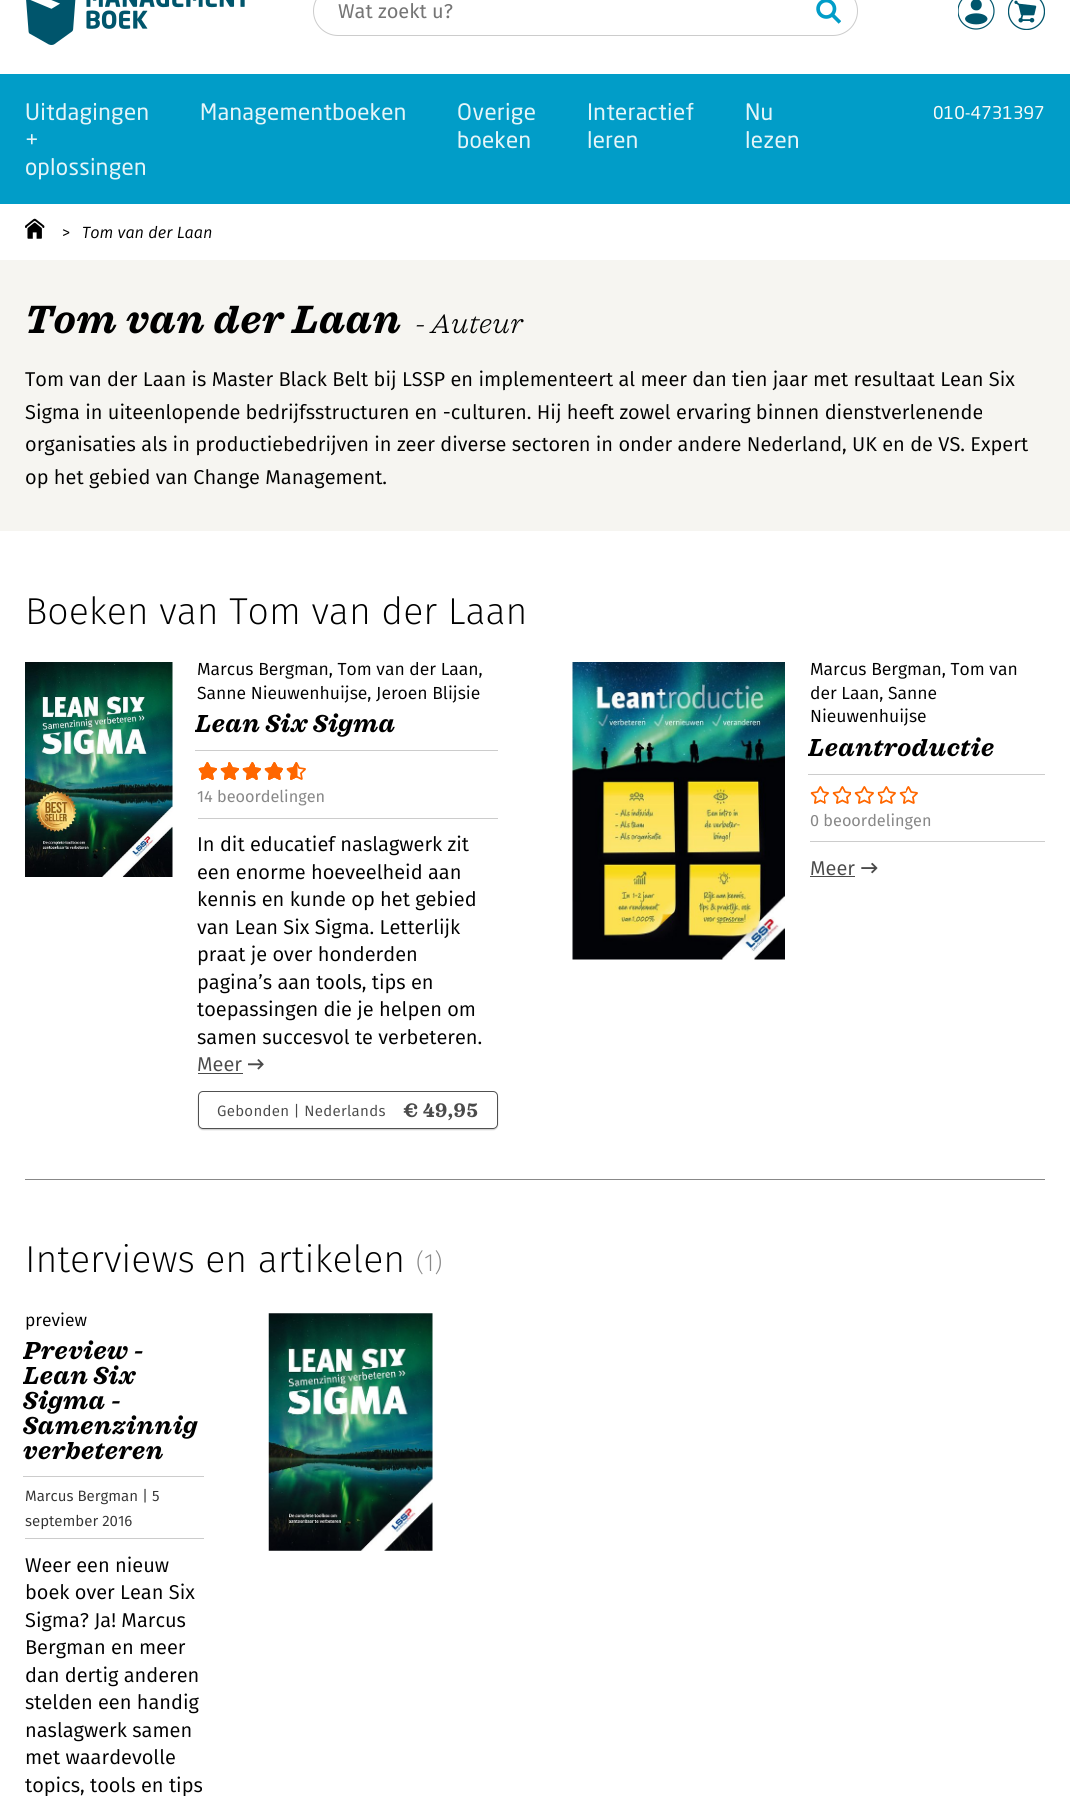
import math
import cairo

surface = cairo.ImageSurface(cairo.Format.RGB24, 1070, 1796)
ctx = cairo.Context(surface)
options = cairo.FontOptions()
options.set_hint_metrics(cairo.HintMetrics.OFF)
options.set_hint_style(cairo.HintStyle.NONE)
ctx.set_font_options(options)
ctx.set_miter_limit(4)


def ink(r, g, b):
    ctx.set_source_rgb(r / 255, g / 255, b / 255)


def write(x, y, s, family, size, color, bold=False, italic=False):
    ctx.select_font_face(family, cairo.FontSlant.ITALIC if italic else cairo.FontSlant.NORMAL, cairo.FontWeight.BOLD if bold else cairo.FontWeight.NORMAL)
    ctx.set_font_size(size)
    ink(*color)
    ctx.move_to(x, y)
    ctx.show_text(s)


def write_spaced(x, y, s, letter, word):
    ctx.move_to(x, y)
    for ch in s:
        ctx.show_text(ch)
        ctx.rel_move_to(letter + word * (ch == ' '), 0)


def block(x, y, w, h, *color):
    ink(*color)
    ctx.rectangle(x, y, w, h)
    ctx.fill()


def round_path(x, y, w, h, r):
    ctx.new_sub_path()
    for i, (u, v) in enumerate([(x + w - r, y + h - r), (x + r, y + h - r), (x + r, y + r), (x + w - r, y + r)]):
        ctx.arc(u, v, r, i * math.pi / 2, (i + 1) * math.pi / 2)
    ctx.close_path()


def blur_box(x, y, w, h, r, blur, alpha):
    ctx.push_group_with_content(cairo.Content.ALPHA)
    ctx.set_operator(cairo.Operator.SOURCE)
    for i in range(15, -16, -2):
        e = blur * i / 6
        if min(w, h) + 2 * e > 0:
            ctx.set_source_rgba(0, 0, 0, alpha * math.erfc((i - 1) / 8.5) / 2)
            round_path(x - e, y - e, w + 2 * e, h + 2 * e, max(0, min(r + e + blur * .6, min(w, h) / 2 + e)))
            ctx.fill()
    ctx.mask(ctx.pop_group())


def paste(path, x, y, w, h):
    ctx.save()
    ctx.set_source_surface(cairo.ImageSurface.create_from_png(path), x, y)
    ctx.rectangle(x, y, w, h)
    ctx.fill()
    ctx.restore()


s1 = dict(family="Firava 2", size=20, color=(117, 117, 117))
s2 = dict(family="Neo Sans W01", size=17.5, color=(250, 250, 248))
s3 = dict(family="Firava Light", size=16.25, color=(0, 0, 0))
s4 = dict(family="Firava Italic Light", size=16.25, color=(0, 0, 0), italic=True)
s5 = dict(family="Firava", size=20, color=(0, 0, 0))
s6 = dict(family="Firava ExtraLight", size=37.5, color=(0, 0, 0))
s7 = dict(family="Firava", size=17.5, color=(0, 0, 0))
s8 = dict(family="Firava 2", size=16.25, color=(136, 136, 136))
s9 = dict(family="Firava", size=20, color=(74, 74, 74))
s10 = dict(family="Firava ExtraLight", size=25, color=(136, 136, 136))
s11 = dict(family="Firava", size=15, color=(51, 51, 51))

ink(255, 255, 255)
ctx.paint()
paste("pic1.png", 26, 0, 219, 45)
paste("pic2.png", 816, 0, 25, 24)
round_path(313.5, -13.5, 544, 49, 24.5)
ink(204, 204, 204)
ctx.set_line_width(1)
ctx.stroke()
write(338, 18, "Wat zoekt u?", **s1)
paste("pic3.png", 958, 0, 37, 30)
paste("pic4.png", 1008, 0, 37, 30)
block(0, 74, 1070, 130, 1, 157, 200)
ctx.select_font_face("Neo Sans W01")
ctx.set_font_size(22.5)
ink(229, 245, 249)
write_spaced(25, 120, "Uitdagingen", 0.3, 0)
write_spaced(25, 148, "+", 0.3, 0)
write_spaced(25, 175, "oplossingen", 0.3, 0)
write_spaced(200, 120, "Managementboeken", 0.3, 0)
write_spaced(457, 120, "Overige", 0.3, 0)
write_spaced(457, 148, "boeken", 0.3, 0)
write_spaced(587, 120, "Interactief", 0.3, 0)
write_spaced(587, 148, "leren", 0.3, 0)
write_spaced(745, 120, "Nu", 0.3, 0)
write_spaced(745, 148, "lezen", 0.3, 0)
write(933, 119, "010-4731397", **s2)
paste("pic5.png", 25, 218, 20, 21)
write(62, 238, ">", **s3)
write(82, 238, "Tom van der Laan", **s4)
block(0, 260, 1070, 271, 246, 245, 241)
ctx.select_font_face("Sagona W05", cairo.FontSlant.ITALIC, cairo.FontWeight.BOLD)
ctx.set_font_size(40)
ink(0, 0, 0)
write_spaced(25, 333, "Tom van der Laan", 0.75, 0)
ctx.select_font_face("Sagona W05 Light", cairo.FontSlant.ITALIC)
ctx.set_font_size(27.5)
write_spaced(415, 333, "- Auteur", 0.5, 0)
write(25, 386, "Tom van der Laan is Master Black Belt bij LSSP en implementeert al meer dan tien jaar met resultaat Lean Six", **s5)
write(25, 419, "Sigma in uiteenlopende bedrijfsstructuren en -culturen. Hij heeft zowel ervaring binnen dienstverlenende", **s5)
write(25, 451, "organisaties als in productiebedrijven in zeer diverse sectoren in onder andere Nederland, UK en de VS. Expert", **s5)
write(25, 484, "op het gebied van Change Management.", **s5)
block(25, 1179, 1020, 1, 136, 136, 136)
write(25, 624, "Boeken van Tom van der Laan", **s6)
paste("pic6.png", 25, 662, 148, 215)
write(197, 675, "Marcus Bergman, Tom van der Laan,", **s7)
write(197, 699, "Sanne Nieuwenhuijse, Jeroen Blijsie", **s7)
block(195, 750, 303, 1, 204, 204, 204)
ctx.save()
ctx.rectangle(195, 713, 303, 37)
ctx.clip()
ctx.select_font_face("Sagona W05", cairo.FontSlant.ITALIC, cairo.FontWeight.BOLD)
ctx.set_font_size(25)
ink(0, 0, 0)
write_spaced(195, 732, "Lean Six Sigma", 0.5, 0)
ctx.restore()
block(198, 818, 300, 1, 204, 204, 204)
paste("pic7.png", 198, 762, 108, 18)
paste("pic8.png", 198, 762, 100, 18)
write(197, 802, "14 beoordelingen", **s8)
write(197, 851, "In dit educatief naslagwerk zit", **s5)
write(197, 879, "een enorme hoeveelheid aan", **s5)
write(197, 906, "kennis en kunde op het gebied", **s5)
write(197, 934, "van Lean Six Sigma. Letterlijk", **s5)
write(197, 961, "praat je over honderden", **s5)
write(197, 989, "pagina’s aan tools, tips en", **s5)
write(197, 1016, "toepassingen die je helpen om", **s5)
write(197, 1044, "samen succesvol te verbeteren.", **s5)
paste("pic9.png", 248, 1059, 16, 11)
write(197, 1071, "Meer", **s9)
block(198, 1073, 45, 1, 74, 74, 74)
ctx.save()
ctx.set_fill_rule(cairo.FillRule.EVEN_ODD)
ctx.new_path()
ctx.move_to(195, 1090)
ctx.line_to(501, 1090)
ctx.line_to(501, 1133)
ctx.line_to(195, 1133)
ctx.close_path()
ctx.move_to(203, 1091)
ctx.line_to(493, 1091)
ctx.curve_to(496, 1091, 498, 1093, 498, 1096)
ctx.line_to(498, 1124)
ctx.curve_to(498, 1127, 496, 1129, 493, 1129)
ctx.line_to(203, 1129)
ctx.curve_to(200, 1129, 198, 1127, 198, 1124)
ctx.line_to(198, 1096)
ctx.curve_to(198, 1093, 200, 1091, 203, 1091)
ctx.close_path()
ctx.clip()
ink(204, 204, 204)
blur_box(198, 1093, 300, 37, 5, 0.5, 1)
ctx.restore()
round_path(198.5, 1091.5, 299, 37, 4.5)
ink(80, 80, 80)
ctx.stroke()
ctx.set_font_size(15)
ink(74, 74, 74)
write_spaced(217, 1116, "Gebonden | Nederlands", 0.3, 0)
ctx.select_font_face("Sagona W05", cairo.FontSlant.NORMAL, cairo.FontWeight.BOLD)
ctx.set_font_size(20)
write_spaced(403, 1117, "€ 49,95", 0.5, 0)
paste("pic10.png", 572, 662, 213, 298)
write(810, 675, "Marcus Bergman, Tom van", **s7)
write(810, 699, "der Laan, Sanne", **s7)
write(810, 722, "Nieuwenhuijse", **s7)
block(808, 774, 237, 1, 204, 204, 204)
ctx.save()
ctx.rectangle(808, 736, 237, 38)
ctx.clip()
ctx.select_font_face("Sagona W05", cairo.FontSlant.ITALIC, cairo.FontWeight.BOLD)
ctx.set_font_size(25)
ink(0, 0, 0)
write_spaced(808, 756, "Leantroductie", 0.5, 0)
ctx.restore()
block(810, 841, 235, 1, 204, 204, 204)
paste("pic11.png", 810, 786, 108, 18)
write(810, 826, "0 beoordelingen", **s8)
paste("pic12.png", 861, 862, 17, 12)
write(810, 875, "Meer", **s9)
block(810, 876, 45, 1, 74, 74, 74)
write(25, 1272, "Interviews en artikelen", **s6)
write(416, 1271, "(1)", **s10)
write(25, 1326, "preview", **s7)
block(23, 1476, 181, 1, 204, 204, 204)
ctx.save()
ctx.rectangle(23, 1339, 181, 137)
ctx.clip()
ctx.select_font_face("Sagona W05", cairo.FontSlant.ITALIC, cairo.FontWeight.BOLD)
ctx.set_font_size(25)
ink(0, 0, 0)
write_spaced(23, 1359, "Preview -", 0.5, 0)
write_spaced(23, 1384, "Lean Six", 0.5, 0)
write_spaced(23, 1409, "Sigma -", 0.5, 0)
write_spaced(23, 1434, "Samenzinnig", 0.5, 0)
ctx.restore()
ctx.select_font_face("Sagona W05", cairo.FontSlant.ITALIC, cairo.FontWeight.BOLD)
ctx.set_font_size(25)
ink(0, 0, 0)
write_spaced(23, 1459, "verbeteren", 0.5, 0)
block(25, 1538, 179, 1, 204, 204, 204)
write(25, 1501, "Marcus Bergman | 5", **s11)
write(25, 1526, "september 2016", **s11)
write(25, 1572, "Weer een nieuw", **s5)
write(25, 1599, "boek over Lean Six", **s5)
write(25, 1627, "Sigma? Ja! Marcus", **s5)
write(25, 1654, "Bergman en meer", **s5)
write(25, 1682, "dan dertig anderen", **s5)
write(25, 1709, "stelden een handig", **s5)
write(25, 1737, "naslagwerk samen", **s5)
write(25, 1764, "met waardevolle", **s5)
write(25, 1792, "topics, tools en tips", **s5)
paste("pic13.png", 268, 1313, 165, 238)
surface.write_to_png("screenshot.png")
